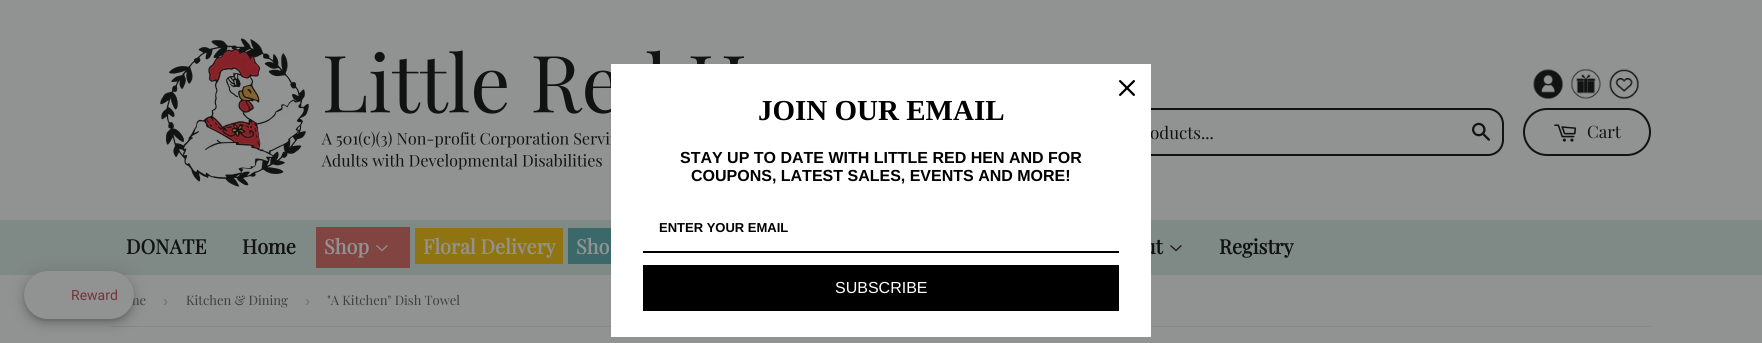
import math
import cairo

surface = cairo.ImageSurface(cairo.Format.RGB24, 1762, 343)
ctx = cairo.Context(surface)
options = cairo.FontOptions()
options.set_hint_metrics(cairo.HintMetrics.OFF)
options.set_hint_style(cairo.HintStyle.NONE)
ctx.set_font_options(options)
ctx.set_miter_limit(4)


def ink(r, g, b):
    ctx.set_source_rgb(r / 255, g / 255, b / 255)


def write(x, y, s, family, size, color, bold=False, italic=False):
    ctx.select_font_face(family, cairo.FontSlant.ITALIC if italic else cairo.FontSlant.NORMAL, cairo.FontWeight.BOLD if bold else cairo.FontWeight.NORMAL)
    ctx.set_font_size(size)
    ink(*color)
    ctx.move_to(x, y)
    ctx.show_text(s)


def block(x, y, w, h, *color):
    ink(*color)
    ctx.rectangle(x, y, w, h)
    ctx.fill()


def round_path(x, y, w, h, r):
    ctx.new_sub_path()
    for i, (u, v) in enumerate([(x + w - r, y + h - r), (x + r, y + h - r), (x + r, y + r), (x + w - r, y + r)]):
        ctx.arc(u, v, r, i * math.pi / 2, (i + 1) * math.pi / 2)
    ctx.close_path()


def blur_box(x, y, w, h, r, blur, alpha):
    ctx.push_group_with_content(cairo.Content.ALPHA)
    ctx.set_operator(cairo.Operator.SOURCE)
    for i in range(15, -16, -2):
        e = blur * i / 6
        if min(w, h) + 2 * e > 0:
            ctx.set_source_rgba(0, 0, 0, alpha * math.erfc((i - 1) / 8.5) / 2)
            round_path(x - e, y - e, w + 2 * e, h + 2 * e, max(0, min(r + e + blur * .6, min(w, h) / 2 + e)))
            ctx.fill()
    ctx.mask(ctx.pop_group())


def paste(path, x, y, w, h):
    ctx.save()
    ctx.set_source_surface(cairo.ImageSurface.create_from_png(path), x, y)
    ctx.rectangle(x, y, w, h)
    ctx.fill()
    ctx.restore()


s1 = dict(family="Playfair Display", size=17, color=(17, 18, 18))
s2 = dict(family="Playfair Display", size=20, color=(17, 18, 18), bold=True)
s3 = dict(family="Liberation Serif", size=29, color=(0, 0, 0), bold=True)
s4 = dict(family="Liberation Sans", size=16, color=(0, 0, 0), bold=True)
s5 = dict(family="Liberation Sans", size=13, color=(0, 0, 0), bold=True)
s6 = dict(family="Liberation Sans", size=16, color=(255, 255, 255))
s7 = dict(family="Playfair Display", size=20, color=(145, 146, 146), bold=True)
s8 = dict(family="Playfair Display", size=13, color=(61, 62, 62))
s9 = dict(family="Roboto", size=14, color=(120, 50, 63))
s10 = dict(family="Liberation Sans", size=15, color=(111, 112, 112))

ink(145, 146, 146)
ctx.paint()
paste("pic2.png", 160, 38, 585, 149)
round_path(1043, 109, 460, 46, 15)
ink(17, 18, 18)
ctx.stroke()
write(1150, 139, "oducts...", **s1)
block(0, 220, 1762, 55, 127, 137, 134)
write(1144, 254, "ut", **s2)
block(111, 326, 1540, 1, 135, 136, 136)
block(611, 64, 540, 273, 255, 255, 255)
paste("pic1.png", 1119, 80, 16, 16)
write(758, 120, "JOIN OUR EMAIL", **s3)
write(680, 163, "STAY UP TO DATE WITH LITTLE RED HEN AND FOR", **s4)
write(691, 181, "COUPONS, LATEST SALES, EVENTS AND MORE!", **s4)
block(643, 251, 476, 2, 0, 0, 0)
write(659, 232, "ENTER YOUR EMAIL", **s5)
block(643, 265, 476, 46, 0, 0, 0)
write(835, 293, "SUBSCRIBE", **s6)
paste("pic3.png", 1533, 69, 30, 30)
paste("pic4.png", 1571, 69, 30, 30)
paste("pic5.png", 1609, 69, 30, 30)
paste("pic6.png", 1472, 122, 18, 19)
round_path(1524, 109, 126, 46, 23)
ink(17, 18, 18)
ctx.stroke()
paste("pic7.png", 1554, 124, 23, 18)
write(1587, 138, "Cart", **s1)
write(126, 254, "DONATE", **s2)
write(242, 254, "Home", **s2)
block(316, 227, 94, 41, 130, 68, 65)
write(324, 254, "Shop", **s7)
paste("pic8.png", 376, 245, 12, 7)
block(415, 228, 148, 36, 145, 116, 18)
write(423, 254, "Floral Delivery", **s7)
block(568, 228, 43, 36, 59, 105, 105)
write(576, 254, "Sho", **s7)
paste("pic9.png", 1170, 245, 12, 7)
write(1219, 254, "Registry", **s2)
ink(17, 18, 18)
blur_box(24, 272, 110, 48, 24, 9, 0.12)
blur_box(24, 277, 110, 48, 24, 5, 0.14)
blur_box(25, 275, 108, 46, 23, 2.5, 0.2)
write(128, 305, "me", **s8)
ink(145, 146, 146)
round_path(24, 271, 110, 48, 24)
ctx.fill()
write(71, 300, "Reward", **s9)
write(163, 306, "›", **s10)
write(186, 305, "Kitchen & Dining", **s8)
write(305, 306, "›", **s10)
write(327, 305, "\"A Kitchen\" Dish Towel", **s8)
surface.write_to_png("screenshot.png")
